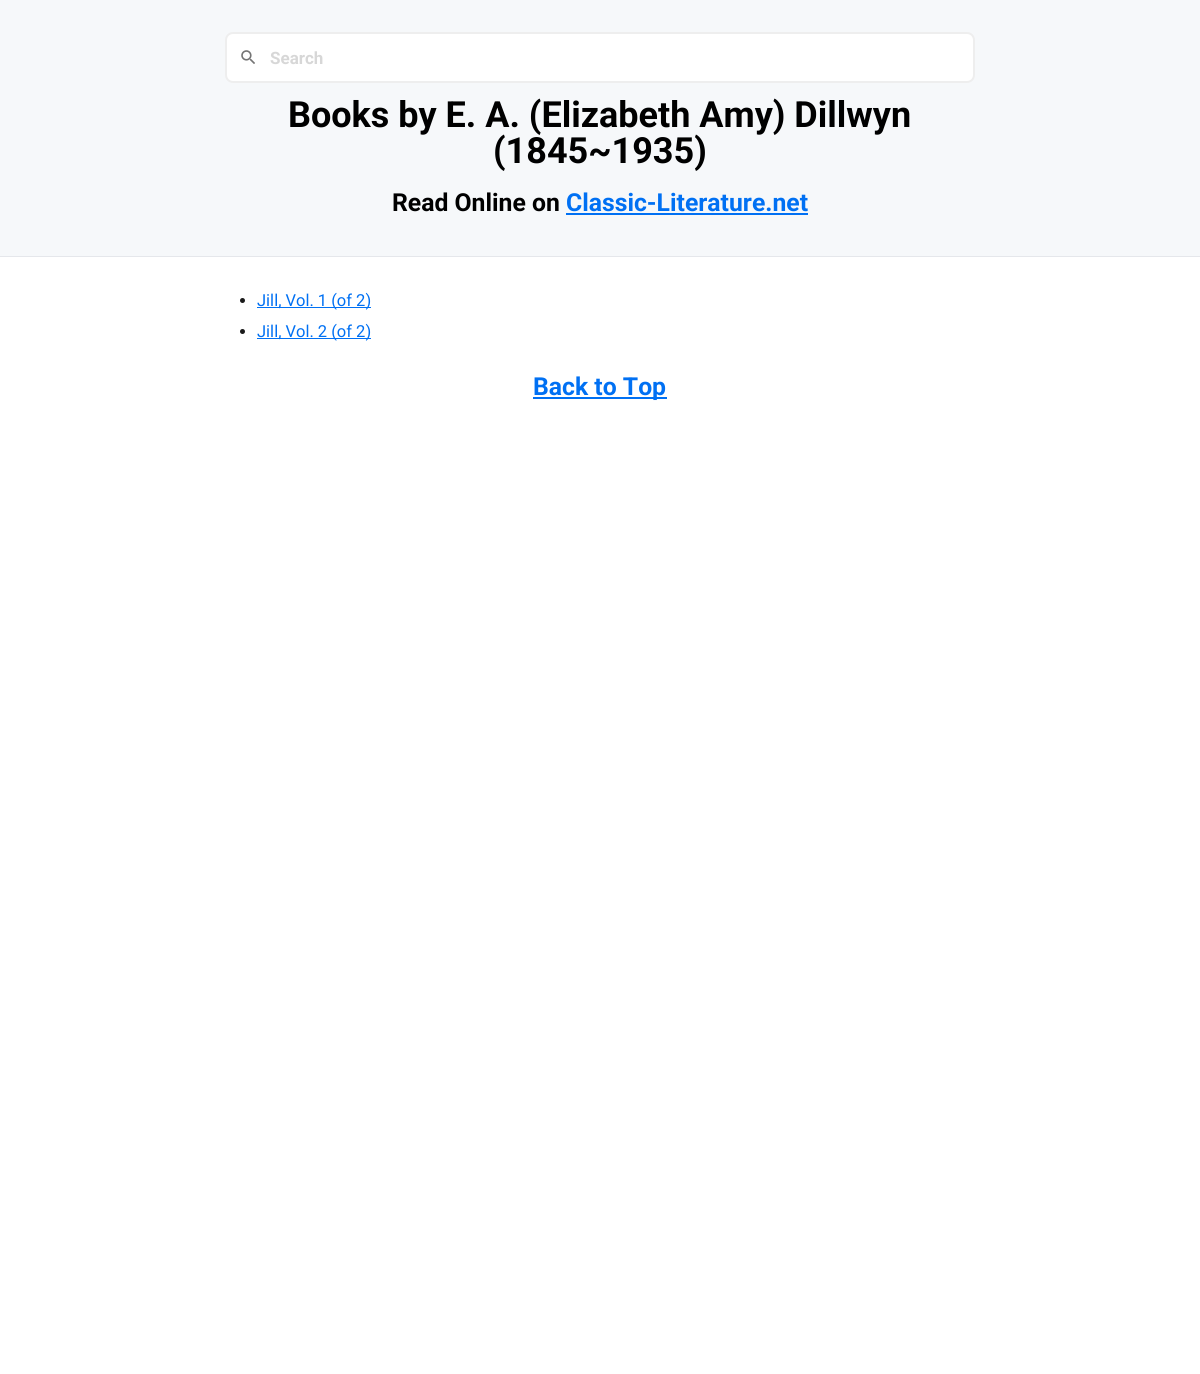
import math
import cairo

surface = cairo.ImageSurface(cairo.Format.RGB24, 1200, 1374)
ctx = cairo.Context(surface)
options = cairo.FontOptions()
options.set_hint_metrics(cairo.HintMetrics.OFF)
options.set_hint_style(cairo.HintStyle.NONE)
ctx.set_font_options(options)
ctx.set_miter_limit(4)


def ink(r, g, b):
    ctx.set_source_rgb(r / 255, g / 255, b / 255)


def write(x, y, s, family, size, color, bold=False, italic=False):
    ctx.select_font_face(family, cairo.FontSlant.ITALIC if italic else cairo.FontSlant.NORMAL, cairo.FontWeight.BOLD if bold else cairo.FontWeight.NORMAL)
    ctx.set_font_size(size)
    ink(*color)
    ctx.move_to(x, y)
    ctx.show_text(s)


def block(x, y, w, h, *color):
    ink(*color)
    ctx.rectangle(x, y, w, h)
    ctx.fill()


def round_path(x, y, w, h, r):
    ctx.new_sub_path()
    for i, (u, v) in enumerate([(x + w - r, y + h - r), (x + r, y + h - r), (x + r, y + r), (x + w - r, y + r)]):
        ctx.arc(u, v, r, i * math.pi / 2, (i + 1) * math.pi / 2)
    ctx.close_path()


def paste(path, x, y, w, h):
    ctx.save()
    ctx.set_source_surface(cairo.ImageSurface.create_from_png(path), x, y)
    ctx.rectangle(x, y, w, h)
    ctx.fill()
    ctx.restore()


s1 = dict(family="Roboto", size=17, color=(215, 215, 215), bold=True)
s2 = dict(family="Roboto", size=36, color=(0, 0, 0), bold=True)
s3 = dict(family="Roboto", size=24.75, color=(0, 0, 0), bold=True)
s4 = dict(family="Roboto", size=24.75, color=(0, 112, 243), bold=True)
s5 = dict(family="Roboto", size=16.5, color=(0, 112, 243))

ink(255, 255, 255)
ctx.paint()
block(0, 0, 1200, 256, 246, 248, 250)
block(0, 256, 1200, 1, 229, 231, 235)
ink(255, 255, 255)
round_path(226, 33, 748, 49, 7)
ctx.fill_preserve()
ink(238, 238, 238)
ctx.stroke()
paste("pic1.png", 241, 50, 14, 14)
write(270, 64, "Search", **s1)
write(288, 127, "Books by E. A. (Elizabeth Amy) Dillwyn", **s2)
write(493, 163, "(1845~1935)", **s2)
write(392, 211, "Read Online on", **s3)
write(566, 211, "Classic-Literature.net", **s4)
block(566, 213, 242, 2, 0, 112, 243)
ink(26, 26, 26)
ctx.new_path()
ctx.arc(242.5, 300.5, 2.5, 0, 2 * math.pi)
ctx.fill()
block(257, 307, 114, 1, 0, 112, 243)
write(257, 306, "Jill, Vol. 1 (of 2)", **s5)
ink(26, 26, 26)
ctx.new_path()
ctx.arc(242.5, 331.5, 2.5, 0, 2 * math.pi)
ctx.fill()
block(257, 338, 114, 1, 0, 112, 243)
write(257, 337, "Jill, Vol. 2 (of 2)", **s5)
block(533, 397, 134, 2, 0, 112, 243)
write(533, 395, "Back to Top", **s4)
surface.write_to_png("screenshot.png")
